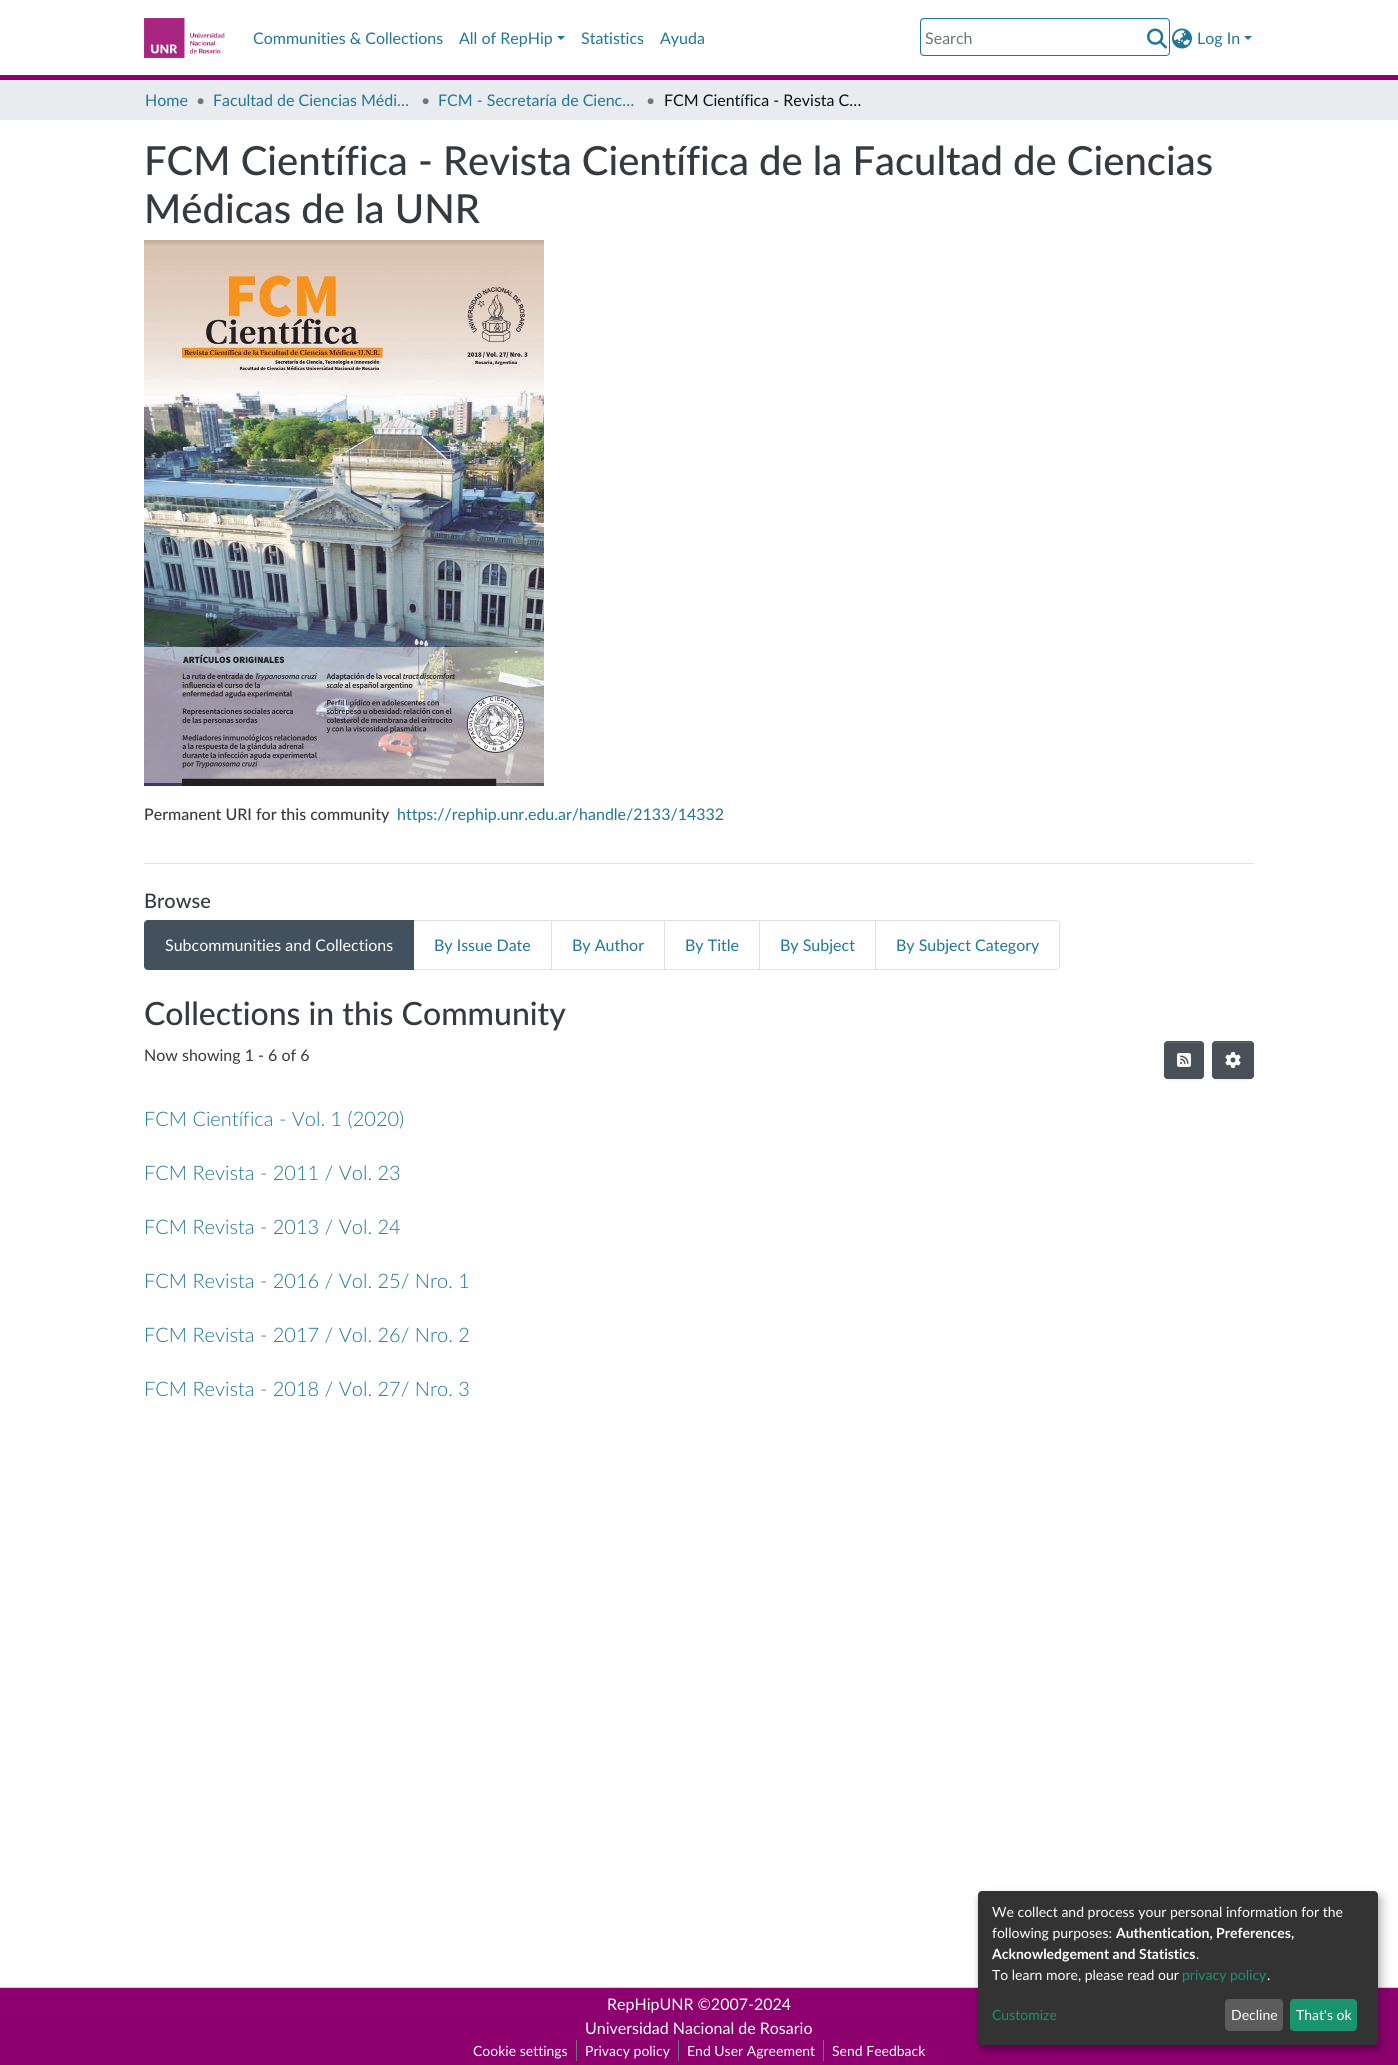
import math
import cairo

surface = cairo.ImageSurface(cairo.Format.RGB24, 1398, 2065)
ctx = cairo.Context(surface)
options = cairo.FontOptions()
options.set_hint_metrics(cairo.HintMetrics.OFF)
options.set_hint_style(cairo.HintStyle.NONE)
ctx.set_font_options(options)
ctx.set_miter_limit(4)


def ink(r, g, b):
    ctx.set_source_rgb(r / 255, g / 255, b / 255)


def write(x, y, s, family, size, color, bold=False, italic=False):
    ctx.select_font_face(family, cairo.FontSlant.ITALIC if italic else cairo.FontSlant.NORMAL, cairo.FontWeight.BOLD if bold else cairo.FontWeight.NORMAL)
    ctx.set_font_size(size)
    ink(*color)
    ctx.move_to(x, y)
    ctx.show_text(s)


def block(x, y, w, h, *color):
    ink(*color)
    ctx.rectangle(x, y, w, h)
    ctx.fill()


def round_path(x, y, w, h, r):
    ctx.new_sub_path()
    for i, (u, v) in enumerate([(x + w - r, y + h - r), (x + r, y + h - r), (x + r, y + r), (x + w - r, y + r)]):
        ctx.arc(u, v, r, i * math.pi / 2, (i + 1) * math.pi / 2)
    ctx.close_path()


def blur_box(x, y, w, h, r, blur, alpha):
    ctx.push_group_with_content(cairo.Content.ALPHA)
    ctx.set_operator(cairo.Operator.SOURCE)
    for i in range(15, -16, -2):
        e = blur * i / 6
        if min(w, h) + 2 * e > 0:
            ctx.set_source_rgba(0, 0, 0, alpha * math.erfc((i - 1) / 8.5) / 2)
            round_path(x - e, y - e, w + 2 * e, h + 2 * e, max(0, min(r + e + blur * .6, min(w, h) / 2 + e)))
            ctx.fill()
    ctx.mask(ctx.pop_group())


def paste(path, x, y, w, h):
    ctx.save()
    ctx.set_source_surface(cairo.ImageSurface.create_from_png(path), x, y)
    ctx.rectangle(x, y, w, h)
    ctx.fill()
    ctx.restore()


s1 = dict(family="Lato", size=16, color=(32, 118, 152))
s2 = dict(family="Lato", size=16, color=(108, 117, 125))
s3 = dict(family="Lato", size=16, color=(5, 20, 26))
s4 = dict(family="Lato Medium", size=40, color=(52, 58, 64))
s5 = dict(family="Lato Medium", size=16, color=(52, 58, 64))
s6 = dict(family="Lato Medium", size=20, color=(52, 58, 64))
s7 = dict(family="Lato", size=16, color=(255, 255, 255))
s8 = dict(family="Lato Medium", size=32, color=(52, 58, 64))
s9 = dict(family="Lato", size=16, color=(52, 58, 64))
s10 = dict(family="Lato Light", size=20, color=(32, 118, 152))
s11 = dict(family="Lato", size=14, color=(255, 255, 255))
s12 = dict(family="Lato", size=14, color=(255, 255, 255), bold=True)
s13 = dict(family="Lato", size=14, color=(26, 147, 111))

ink(255, 255, 255)
ctx.paint()
block(0, 75, 1398, 5, 141, 0, 110)
paste("pic1.png", 144, 18, 81, 40)
write(253, 44, "Communities & Collections", **s1)
write(459, 44, "All of RepHip", **s1)
ctx.new_path()
ctx.move_to(557, 36)
ctx.line_to(565, 36)
ctx.line_to(561, 40)
ctx.close_path()
ctx.fill()
write(581, 44, "Statistics", **s1)
write(660, 44, "Ayuda", **s1)
ink(236, 236, 236)
ctx.new_path()
ctx.move_to(924, 20)
ctx.line_to(1166, 20)
ctx.curve_to(1168, 20, 1169, 21, 1169, 23)
ctx.curve_to(1169, 21, 1168, 19, 1166, 19)
ctx.line_to(924, 19)
ctx.curve_to(922, 19, 921, 21, 921, 23)
ctx.curve_to(921, 21, 922, 20, 924, 20)
ctx.close_path()
ctx.fill()
round_path(920.5, 18.5, 249, 37, 3.5)
ink(32, 118, 152)
ctx.set_line_width(1)
ctx.stroke()
write(925, 44, "Search", **s2)
paste("pic2.png", 1147, 28, 20, 21)
paste("pic3.png", 1172, 28, 20, 21)
write(1197, 44, "Log In", **s1)
ctx.new_path()
ctx.move_to(1244, 36)
ctx.line_to(1252, 36)
ctx.line_to(1248, 40)
ctx.close_path()
ctx.fill()
block(0, 80, 1398, 40, 233, 236, 239)
write(145, 106, "Home", **s1)
write(196, 106, "•", **s2)
write(213, 106, "Facultad de Ciencias Médi…", **s1)
write(421, 106, "•", **s2)
write(438, 106, "FCM - Secretaría de Cienc…", **s1)
write(646, 106, "•", **s2)
write(664, 106, "FCM Científica - Revista C…", **s3)
block(144, 863, 1110, 1, 222, 226, 230)
write(144, 175, "FCM Científica - Revista Científica de la Facultad de Ciencias", **s4)
write(144, 223, "Médicas de la UNR", **s4)
paste("pic4.png", 144, 240, 400, 546)
write(144, 820, "Permanent URI for this community", **s5)
write(397, 820, "https://rephip.unr.edu.ar/handle/2133/14332", **s1)
write(144, 908, "Browse", **s6)
ink(67, 81, 95)
ctx.new_path()
ctx.move_to(148, 920.5)
ctx.line_to(413.5, 920.5)
ctx.line_to(413.5, 969.5)
ctx.line_to(148, 969.5)
ctx.curve_to(146, 969.5, 144.5, 968, 144.5, 966)
ctx.line_to(144.5, 924)
ctx.curve_to(144.5, 922, 146, 920.5, 148, 920.5)
ctx.close_path()
ctx.fill_preserve()
ctx.stroke()
write(165, 951, "Subcommunities and Collections", **s7)
ink(223, 223, 223)
ctx.new_path()
ctx.move_to(414, 920)
ctx.line_to(552, 920)
ctx.line_to(551, 921)
ctx.line_to(414, 921)
ctx.close_path()
ctx.fill()
ctx.set_source_rgba(0, 0, 0, 0.12)
ctx.new_path()
ctx.move_to(552, 920)
ctx.line_to(552, 970)
ctx.line_to(551, 969)
ctx.line_to(551, 921)
ctx.close_path()
ctx.fill()
ctx.new_path()
ctx.move_to(552, 970)
ctx.line_to(414, 970)
ctx.line_to(414, 969)
ctx.line_to(551, 969)
ctx.close_path()
ctx.fill()
write(434, 951, "By Issue Date", **s1)
ink(223, 223, 223)
ctx.new_path()
ctx.move_to(552, 920)
ctx.line_to(665, 920)
ctx.line_to(664, 921)
ctx.line_to(552, 921)
ctx.close_path()
ctx.fill()
ctx.set_source_rgba(0, 0, 0, 0.12)
ctx.new_path()
ctx.move_to(665, 920)
ctx.line_to(665, 970)
ctx.line_to(664, 969)
ctx.line_to(664, 921)
ctx.close_path()
ctx.fill()
ctx.new_path()
ctx.move_to(665, 970)
ctx.line_to(552, 970)
ctx.line_to(552, 969)
ctx.line_to(664, 969)
ctx.close_path()
ctx.fill()
write(572, 951, "By Author", **s1)
ink(223, 223, 223)
ctx.new_path()
ctx.move_to(665, 920)
ctx.line_to(760, 920)
ctx.line_to(759, 921)
ctx.line_to(665, 921)
ctx.close_path()
ctx.fill()
ctx.set_source_rgba(0, 0, 0, 0.12)
ctx.new_path()
ctx.move_to(760, 920)
ctx.line_to(760, 970)
ctx.line_to(759, 969)
ctx.line_to(759, 921)
ctx.close_path()
ctx.fill()
ctx.new_path()
ctx.move_to(760, 970)
ctx.line_to(665, 970)
ctx.line_to(665, 969)
ctx.line_to(759, 969)
ctx.close_path()
ctx.fill()
write(685, 951, "By Title", **s1)
ink(223, 223, 223)
ctx.new_path()
ctx.move_to(760, 920)
ctx.line_to(876, 920)
ctx.line_to(875, 921)
ctx.line_to(760, 921)
ctx.close_path()
ctx.fill()
ctx.set_source_rgba(0, 0, 0, 0.12)
ctx.new_path()
ctx.move_to(876, 920)
ctx.line_to(876, 970)
ctx.line_to(875, 969)
ctx.line_to(875, 921)
ctx.close_path()
ctx.fill()
ctx.new_path()
ctx.move_to(876, 970)
ctx.line_to(760, 970)
ctx.line_to(760, 969)
ctx.line_to(875, 969)
ctx.close_path()
ctx.fill()
write(780, 951, "By Subject", **s1)
ink(223, 223, 223)
ctx.set_fill_rule(cairo.FillRule.EVEN_ODD)
ctx.new_path()
ctx.move_to(876, 920)
ctx.line_to(1056, 920)
ctx.curve_to(1058, 920, 1060, 922, 1060, 924)
ctx.line_to(1060, 966)
ctx.curve_to(1060, 968, 1058, 970, 1056, 970)
ctx.line_to(876, 970)
ctx.close_path()
ctx.move_to(876, 921)
ctx.line_to(1056, 921)
ctx.curve_to(1058, 921, 1059, 922, 1059, 924)
ctx.line_to(1059, 966)
ctx.curve_to(1059, 968, 1058, 969, 1056, 969)
ctx.line_to(876, 969)
ctx.close_path()
ctx.fill()
write(896, 951, "By Subject Category", **s1)
write(144, 1025, "Collections in this Community", **s8)
write(144, 1061, "Now showing 1 - 6 of 6", **s9)
ink(0, 0, 0)
blur_box(1164, 1042, 40, 38, 4, 0.5, 0.07)
ink(73, 80, 87)
round_path(1164, 1041, 40, 38, 4)
ctx.fill()
ink(100, 106, 112)
ctx.set_fill_rule(cairo.FillRule.WINDING)
ctx.new_path()
ctx.move_to(1168, 1043)
ctx.line_to(1200, 1043)
ctx.curve_to(1202, 1043, 1203, 1044, 1203, 1046)
ctx.curve_to(1203, 1041, 1199, 1042, 1194.5, 1042)
ctx.line_to(1173.5, 1042)
ctx.curve_to(1169, 1042, 1165, 1041, 1165, 1046)
ctx.curve_to(1165, 1044, 1166, 1043, 1168, 1043)
ctx.close_path()
ctx.fill()
round_path(1164.5, 1041.5, 39, 37, 3.5)
ink(73, 80, 87)
ctx.stroke()
paste("pic5.png", 1177, 1053, 14, 14)
ink(0, 0, 0)
blur_box(1212, 1042, 42, 38, 4, 0.5, 0.07)
ink(73, 80, 87)
round_path(1212, 1041, 42, 38, 4)
ctx.fill()
ink(100, 106, 112)
ctx.new_path()
ctx.move_to(1216, 1043)
ctx.line_to(1250, 1043)
ctx.curve_to(1252, 1043, 1253, 1044, 1253, 1046)
ctx.curve_to(1253, 1041, 1248, 1042, 1244, 1042)
ctx.line_to(1222, 1042)
ctx.curve_to(1218, 1042, 1213, 1041, 1213, 1046)
ctx.curve_to(1213, 1044, 1214, 1043, 1216, 1043)
ctx.close_path()
ctx.fill()
round_path(1212.5, 1041.5, 41, 37, 3.5)
ink(73, 80, 87)
ctx.stroke()
paste("pic6.png", 1225, 1052, 16, 16)
write(144, 1126, "FCM Científica - Vol. 1 (2020)", **s10)
write(144, 1180, "FCM Revista - 2011 / Vol. 23", **s10)
write(144, 1234, "FCM Revista - 2013 / Vol. 24", **s10)
write(144, 1288, "FCM Revista - 2016 / Vol. 25/ Nro. 1", **s10)
write(144, 1342, "FCM Revista - 2017 / Vol. 26/ Nro. 2", **s10)
write(144, 1396, "FCM Revista - 2018 / Vol. 27/ Nro. 3", **s10)
block(0, 1988, 1398, 77, 141, 0, 110)
block(0, 1987, 1398, 1, 206, 212, 218)
write(607, 2010, "RepHipUNR ©2007-2024", **s7)
write(585, 2034, "Universidad Nacional de Rosario", **s7)
write(473, 2056, "Cookie settings", **s11)
block(576, 2040, 1, 21, 108, 117, 125)
write(585, 2056, "Privacy policy", **s11)
block(678, 2040, 1, 21, 108, 117, 125)
write(687, 2056, "End User Agreement", **s11)
block(823, 2040, 1, 21, 108, 117, 125)
write(832, 2056, "Send Feedback", **s11)
ink(0, 0, 0)
blur_box(983, 1896, 400, 154, 4, 5, 0.19)
blur_box(978, 1895, 400, 154, 4, 3, 0.2)
ink(51, 51, 51)
round_path(978, 1891, 400, 154, 4)
ctx.fill()
write(992, 1917, "We collect and process your personal information for the", **s11)
write(992, 1938, "following purposes:", **s11)
write(1116, 1938, "Authentication, Preferences,", **s12)
write(992, 1959, "Acknowledgement and Statistics", **s12)
write(1196, 1959, ".", **s11)
write(992, 1980, "To learn more, please read our", **s11)
write(1182, 1980, "privacy policy", **s13)
write(1267, 1980, ".", **s11)
write(992, 2020, "Customize", **s13)
ink(92, 92, 92)
round_path(1225, 1999, 58, 32, 4)
ctx.fill()
write(1231, 2020, "Decline", **s11)
ink(26, 147, 111)
round_path(1290, 1999, 67, 32, 4)
ctx.fill()
write(1296, 2020, "That's ok", **s11)
surface.write_to_png("screenshot.png")
